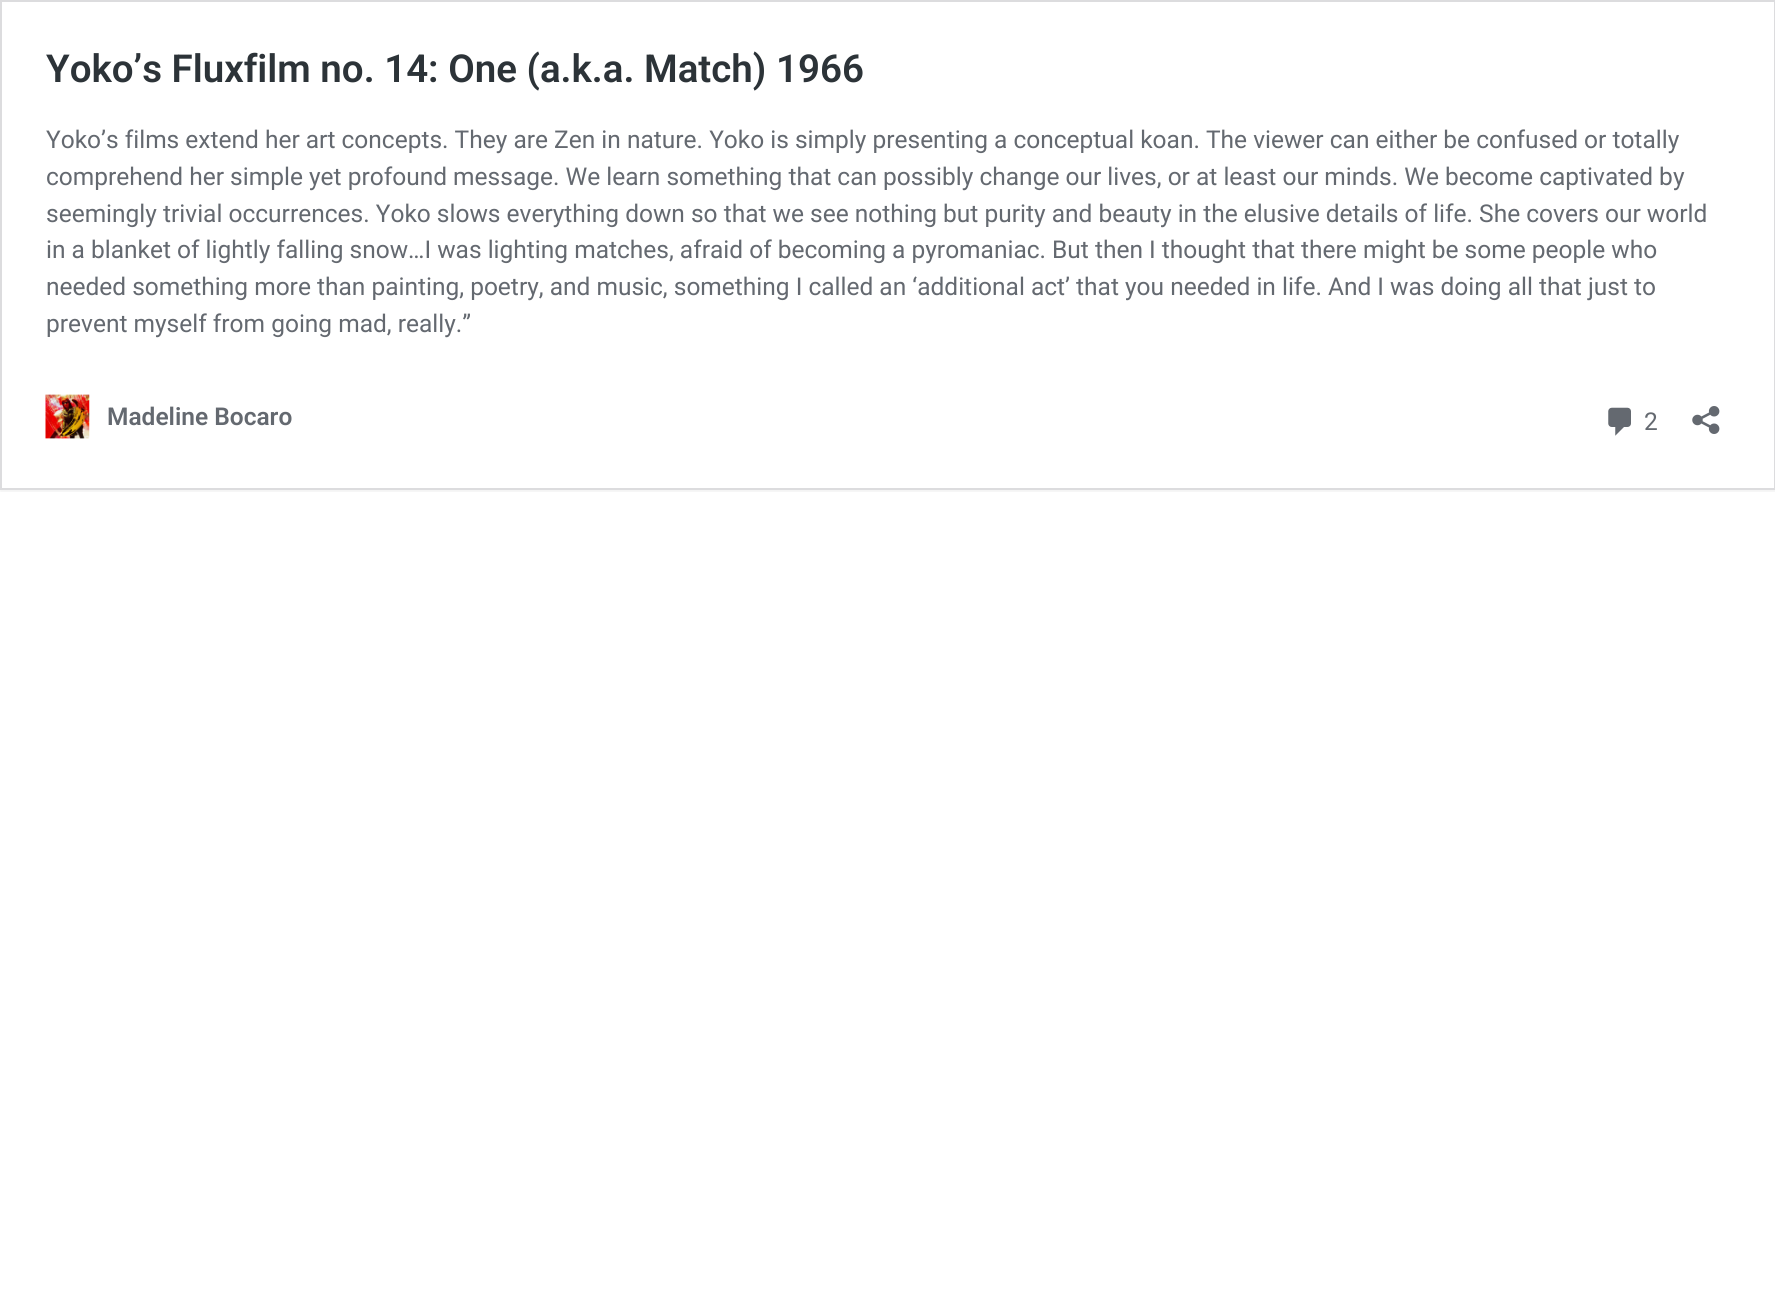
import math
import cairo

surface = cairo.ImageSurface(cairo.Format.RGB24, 1775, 1292)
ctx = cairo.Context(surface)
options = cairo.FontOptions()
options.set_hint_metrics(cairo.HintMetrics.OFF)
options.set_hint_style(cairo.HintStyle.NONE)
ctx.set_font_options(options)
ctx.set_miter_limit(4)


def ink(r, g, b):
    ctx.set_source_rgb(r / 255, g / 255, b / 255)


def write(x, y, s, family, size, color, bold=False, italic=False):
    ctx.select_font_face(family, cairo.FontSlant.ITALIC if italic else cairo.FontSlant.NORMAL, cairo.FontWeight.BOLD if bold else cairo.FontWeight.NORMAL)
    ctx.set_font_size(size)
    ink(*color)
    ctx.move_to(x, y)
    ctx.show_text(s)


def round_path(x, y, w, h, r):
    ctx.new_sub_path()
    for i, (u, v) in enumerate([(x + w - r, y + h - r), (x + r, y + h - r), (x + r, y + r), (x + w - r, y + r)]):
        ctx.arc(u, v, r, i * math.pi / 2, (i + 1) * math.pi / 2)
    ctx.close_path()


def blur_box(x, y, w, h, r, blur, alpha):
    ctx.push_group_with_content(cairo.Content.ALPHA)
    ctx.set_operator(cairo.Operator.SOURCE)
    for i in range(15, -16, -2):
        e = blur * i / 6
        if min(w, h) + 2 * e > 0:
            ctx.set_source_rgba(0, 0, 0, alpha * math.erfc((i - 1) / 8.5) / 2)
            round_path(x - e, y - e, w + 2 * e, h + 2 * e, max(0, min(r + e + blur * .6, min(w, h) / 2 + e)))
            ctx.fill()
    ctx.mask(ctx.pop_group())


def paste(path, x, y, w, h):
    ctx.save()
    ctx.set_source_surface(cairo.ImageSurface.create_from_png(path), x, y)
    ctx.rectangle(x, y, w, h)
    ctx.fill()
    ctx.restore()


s1 = dict(family="Roboto SemiBold", size=38.5, color=(44, 51, 56))
s2 = dict(family="Roboto", size=24.5, color=(100, 105, 112))
s3 = dict(family="Roboto SemiBold", size=24.5, color=(100, 105, 112))

ink(255, 255, 255)
ctx.paint()
ctx.save()
ctx.rectangle(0, 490, 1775, 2)
ctx.clip()
ink(0, 0, 0)
blur_box(0, 2, 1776, 490, 0, 1, 0.05)
ctx.restore()
ctx.rectangle(1, 1, 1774, 488)
ink(220, 220, 222)
ctx.stroke()
write(46, 82, "Yoko’s Fluxfilm no. 14: One (a.k.a. Match) 1966", **s1)
write(46, 148, "Yoko’s films extend her art concepts. They are Zen in nature. Yoko is simply presenting a conceptual koan. The viewer can either be confused or totally", **s2)
write(46, 185, "comprehend her simple yet profound message. We learn something that can possibly change our lives, or at least our minds. We become captivated by", **s2)
write(46, 222, "seemingly trivial occurrences. Yoko slows everything down so that we see nothing but purity and beauty in the elusive details of life. She covers our world", **s2)
write(46, 258, "in a blanket of lightly falling snow…I was lighting matches, afraid of becoming a pyromaniac. But then I thought that there might be some people who", **s2)
write(46, 295, "needed something more than painting, poetry, and music, something I called an ‘additional act’ that you needed in life. And I was doing all that just to", **s2)
write(46, 332, "prevent myself from going mad, really.”", **s2)
paste("pic1.png", 45, 394, 45, 45)
write(107, 425, "Madeline Bocaro", **s3)
paste("pic2.png", 1608, 407, 23, 29)
write(1644, 430, "2", **s2)
paste("pic3.png", 1692, 406, 28, 28)
surface.write_to_png("screenshot.png")
